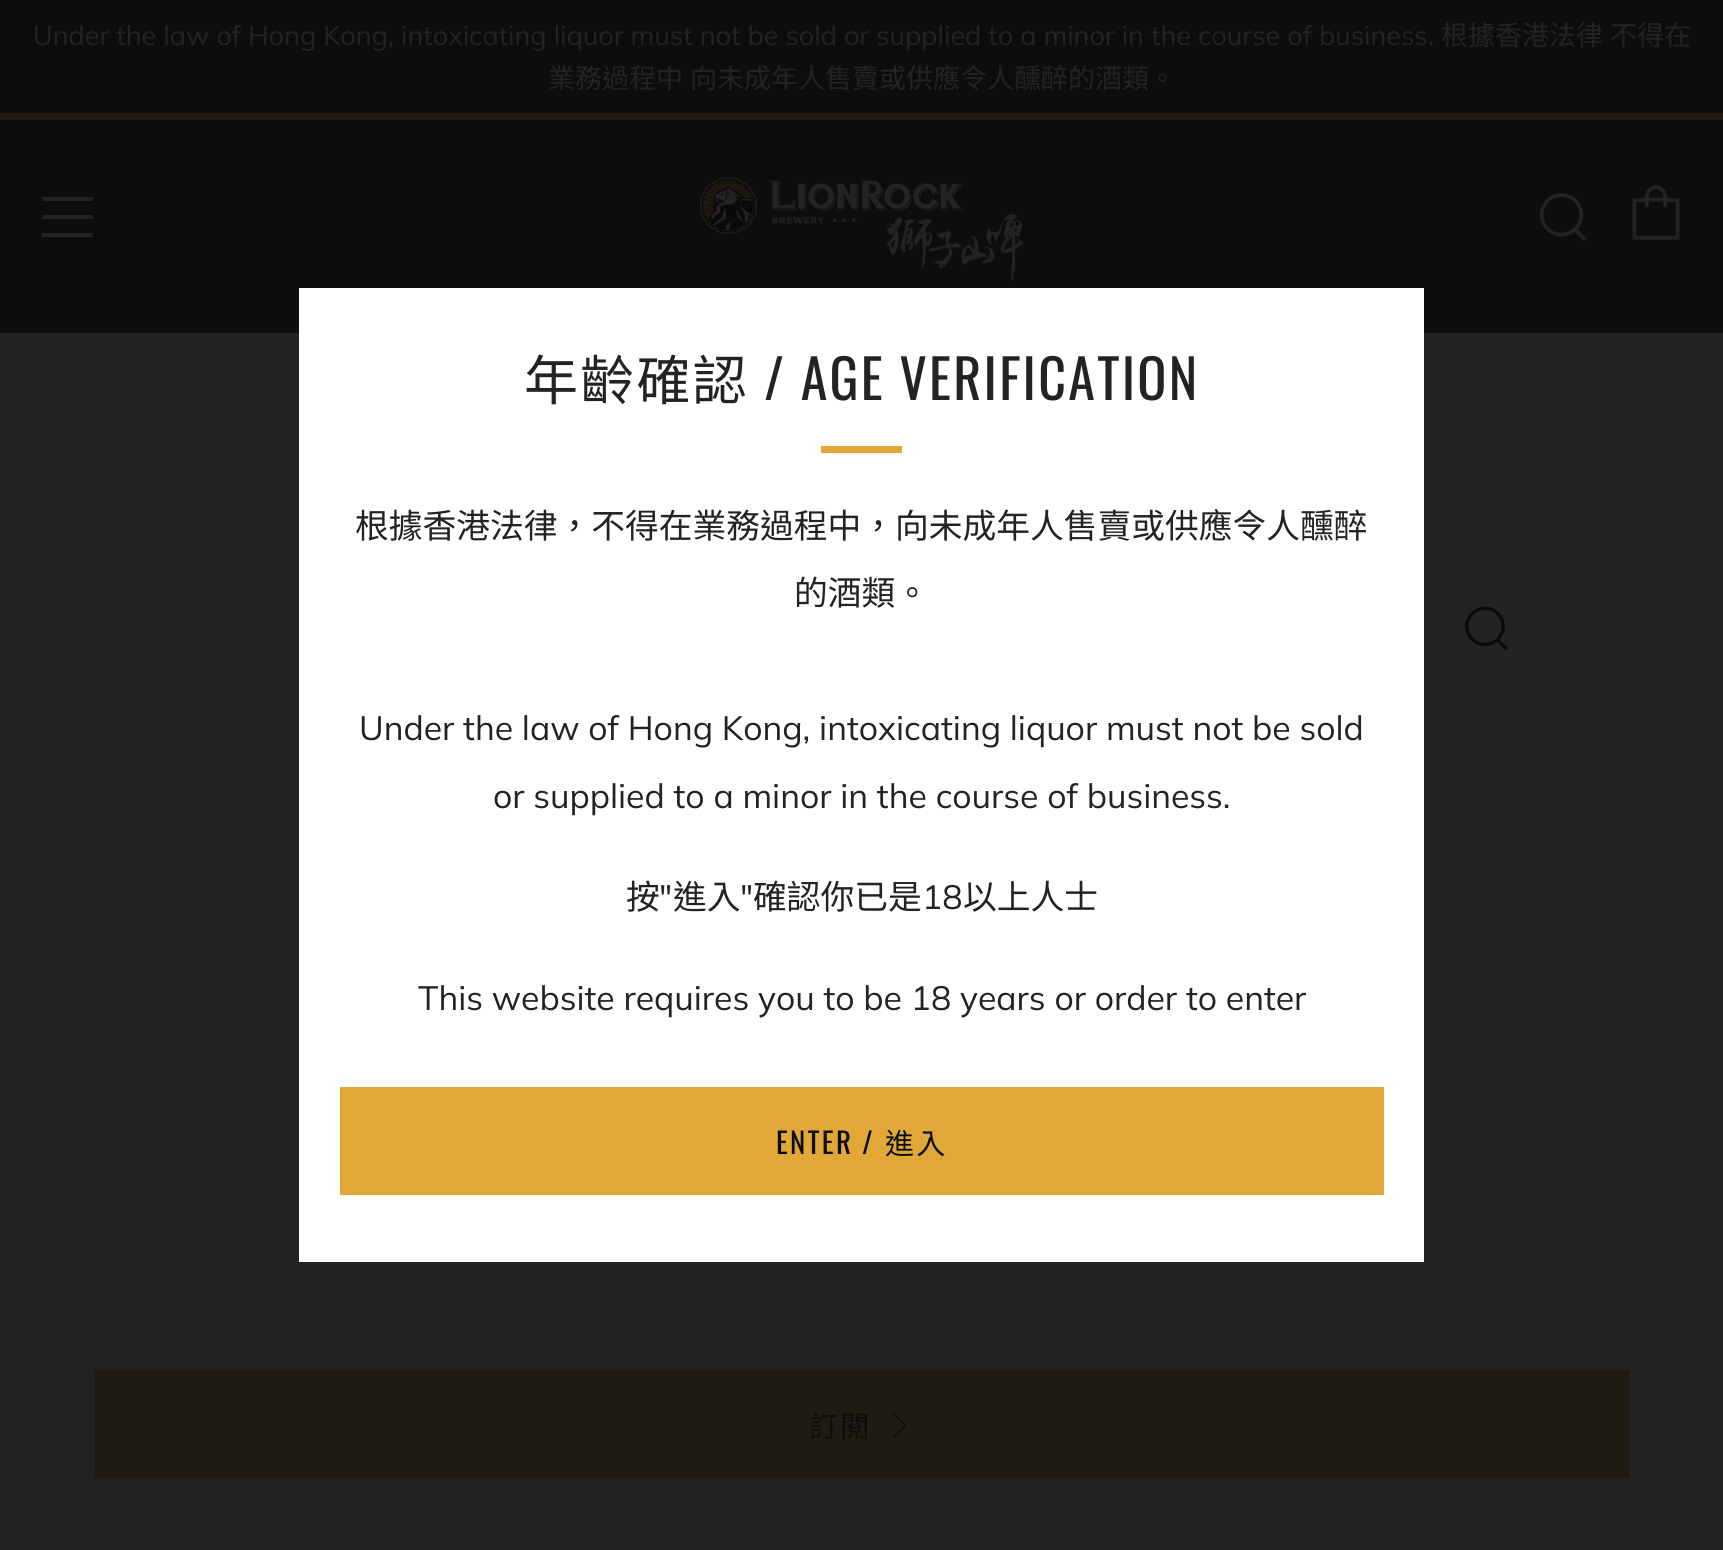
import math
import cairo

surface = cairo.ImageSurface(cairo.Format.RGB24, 1723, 1550)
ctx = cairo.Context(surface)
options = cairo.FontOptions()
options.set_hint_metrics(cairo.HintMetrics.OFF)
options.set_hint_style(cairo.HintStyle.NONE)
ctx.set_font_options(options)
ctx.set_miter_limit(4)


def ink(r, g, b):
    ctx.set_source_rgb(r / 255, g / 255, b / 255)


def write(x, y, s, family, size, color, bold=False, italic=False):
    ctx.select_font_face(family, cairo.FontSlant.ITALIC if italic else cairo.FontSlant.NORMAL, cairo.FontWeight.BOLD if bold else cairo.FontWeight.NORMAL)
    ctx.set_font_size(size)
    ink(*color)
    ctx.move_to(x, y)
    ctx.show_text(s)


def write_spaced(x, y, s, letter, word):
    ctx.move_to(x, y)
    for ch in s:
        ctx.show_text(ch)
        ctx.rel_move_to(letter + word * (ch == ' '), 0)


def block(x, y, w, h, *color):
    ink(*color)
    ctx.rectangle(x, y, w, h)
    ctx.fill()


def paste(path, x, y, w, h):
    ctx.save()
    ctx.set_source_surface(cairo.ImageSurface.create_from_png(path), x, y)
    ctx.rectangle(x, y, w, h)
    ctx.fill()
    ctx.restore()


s1 = dict(family="Muli", size=27, color=(35, 35, 35))
s2 = dict(family="Noto Sans CJK TC", size=27, color=(35, 35, 35))
s3 = dict(family="Noto Sans CJK TC", size=33.75, color=(35, 35, 35))
s4 = dict(family="Muli", size=33.75, color=(35, 35, 35))

ink(35, 35, 35)
ctx.paint()
block(0, 0, 1723, 113, 13, 13, 13)
write(33, 45, "Under the law of Hong Kong, intoxicating liquor must not be sold or supplied to a minor in the course of business.", **s1)
write(1441, 45, "根據香港法律", **s2)
write(1610, 45, "不得在", **s2)
write_spaced(548, 88, "業務過程中 向未成年人售賣或供應令人醺醉的酒類。", 0, 1)
block(0, 120, 1723, 213, 13, 13, 13)
block(0, 113, 1723, 7, 32, 27, 16)
ink(35, 35, 35)
ctx.new_path()
ctx.move_to(42, 201)
ctx.line_to(93, 201)
ctx.line_to(93, 197)
ctx.line_to(42, 197)
ctx.close_path()
ctx.move_to(42, 237)
ctx.line_to(93, 237)
ctx.line_to(93, 233)
ctx.line_to(42, 233)
ctx.close_path()
ctx.move_to(42, 219)
ctx.line_to(93, 219)
ctx.line_to(93, 215)
ctx.line_to(42, 215)
ctx.close_path()
ctx.fill()
paste("pic1.png", 700, 177, 324, 105)
paste("pic2.png", 1539, 193, 48, 49)
paste("pic3.png", 1632, 185, 48, 55)
paste("pic4.png", 1465, 606, 44, 45)
block(95, 1370, 1534, 108, 32, 27, 16)
ctx.set_font_size(29)
ink(12, 12, 12)
write_spaced(809, 1437, "訂閱", 2.25, 0)
ctx.new_path()
ctx.move_to(893, 1437)
ctx.line_to(894, 1438.5)
ctx.line_to(907, 1425.5)
ctx.line_to(894, 1412.5)
ctx.line_to(893, 1413.5)
ctx.line_to(904.5, 1425.5)
ctx.close_path()
ctx.fill()
block(299, 288, 1125, 974, 255, 255, 255)
ctx.set_font_size(54)
ink(35, 35, 35)
write_spaced(524, 400, "年齡確認", 2.25, 0)
ctx.select_font_face("Oswald")
write_spaced(764, 400, "/ AGE VERIFICATION", 2.25, 0)
block(821, 446, 81, 7, 225, 168, 56)
write(355, 538, "根據香港法律，不得在業務過程中，向未成年人售賣或供應令人醺醉", **s3)
write(794, 605, "的酒類。", **s3)
write(359, 740, "Under the law of Hong Kong, intoxicating liquor must not be sold", **s4)
write(493, 808, "or supplied to a minor in the course of business.", **s4)
write(626, 909, "按", **s3)
write(659, 909, "\"", **s4)
write(673, 909, "進入", **s3)
write(740, 909, "\"", **s4)
write(753, 909, "確認你已是", **s3)
write(922, 909, "18", **s4)
write(963, 909, "以上人士", **s3)
write(418, 1010, "This website requires you to be 18 years or order to enter", **s4)
block(340, 1087, 1044, 108, 225, 168, 56)
ctx.select_font_face("Oswald")
ctx.set_font_size(29)
ink(12, 12, 12)
write_spaced(776, 1154, "ENTER /", 2.25, 0)
ctx.select_font_face("Noto Sans CJK TC")
write_spaced(885, 1154, "進入", 2.25, 0)
surface.write_to_png("screenshot.png")
